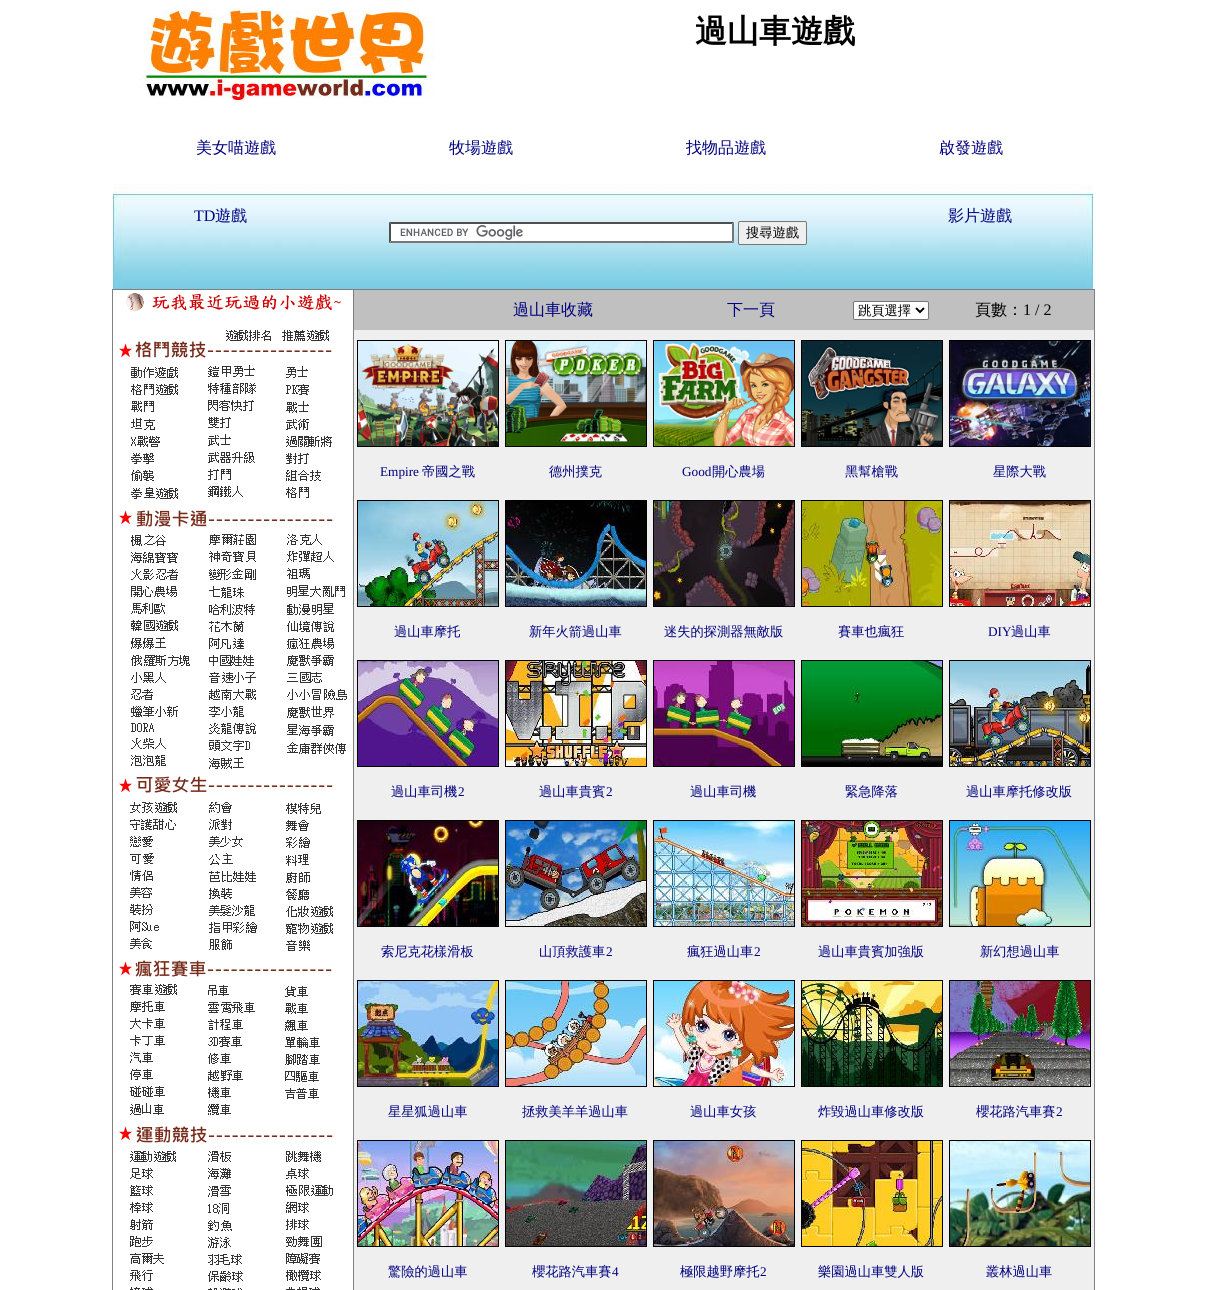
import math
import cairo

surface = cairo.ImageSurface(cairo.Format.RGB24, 1206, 1290)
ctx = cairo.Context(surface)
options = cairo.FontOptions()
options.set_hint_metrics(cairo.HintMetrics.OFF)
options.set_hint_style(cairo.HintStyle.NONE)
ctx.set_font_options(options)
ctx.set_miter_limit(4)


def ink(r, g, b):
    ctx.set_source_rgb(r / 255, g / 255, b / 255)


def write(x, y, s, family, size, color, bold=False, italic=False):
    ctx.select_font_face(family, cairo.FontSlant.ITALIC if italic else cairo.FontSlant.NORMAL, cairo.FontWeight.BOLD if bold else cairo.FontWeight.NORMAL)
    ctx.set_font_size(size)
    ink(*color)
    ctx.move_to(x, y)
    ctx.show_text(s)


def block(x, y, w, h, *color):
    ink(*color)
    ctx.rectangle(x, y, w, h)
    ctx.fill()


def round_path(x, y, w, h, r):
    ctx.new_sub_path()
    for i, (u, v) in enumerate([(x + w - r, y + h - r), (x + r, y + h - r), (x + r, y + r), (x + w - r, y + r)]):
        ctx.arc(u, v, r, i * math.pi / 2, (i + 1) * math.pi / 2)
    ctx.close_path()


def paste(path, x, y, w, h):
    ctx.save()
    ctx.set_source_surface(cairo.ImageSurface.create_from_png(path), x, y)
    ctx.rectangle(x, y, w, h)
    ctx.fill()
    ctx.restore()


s1 = dict(family="WenQuanYi Zen Hei", size=32, color=(0, 0, 0), bold=True)
s2 = dict(family="WenQuanYi Zen Hei Medium", size=16, color=(0, 0, 128))
s3 = dict(family="Liberation Serif", size=16, color=(0, 0, 128))
s4 = dict(family="WenQuanYi Zen Hei Medium", size=13.25, color=(0, 0, 0))
s5 = dict(family="WenQuanYi Zen Hei Medium", size=16, color=(0, 0, 0))
s6 = dict(family="Liberation Serif", size=16, color=(0, 0, 0))
s7 = dict(family="Liberation Serif", size=13.25, color=(0, 0, 128))
s8 = dict(family="WenQuanYi Zen Hei Medium", size=13.25, color=(0, 0, 128))

ink(255, 255, 255)
ctx.paint()
paste("pic1.png", 139, 10, 296, 90)
write(695, 42, "過山車遊戲", **s1)
write(196, 153, "美女喵遊戲", **s2)
write(449, 153, "牧場遊戲", **s2)
write(686, 153, "找物品遊戲", **s2)
write(939, 153, "啟發遊戲", **s2)
paste("pic2.png", 113, 184, 980, 105)
write(194, 221, "TD", **s3)
write(215, 221, "遊戲", **s2)
write(948, 221, "影片遊戲", **s2)
block(389, 222, 345, 21, 255, 255, 255)
paste("pic3.png", 400, 225, 123, 15)
ink(79, 79, 79)
ctx.new_path()
ctx.move_to(389, 222)
ctx.line_to(734, 222)
ctx.line_to(732, 224)
ctx.line_to(391, 224)
ctx.close_path()
ctx.fill()
ink(118, 118, 118)
ctx.new_path()
ctx.move_to(734, 222)
ctx.line_to(734, 243)
ctx.line_to(732, 241)
ctx.line_to(732, 224)
ctx.close_path()
ctx.fill()
ctx.new_path()
ctx.move_to(734, 243)
ctx.line_to(389, 243)
ctx.line_to(391, 241)
ctx.line_to(732, 241)
ctx.close_path()
ctx.fill()
ink(79, 79, 79)
ctx.new_path()
ctx.move_to(389, 243)
ctx.line_to(389, 222)
ctx.line_to(391, 224)
ctx.line_to(391, 241)
ctx.close_path()
ctx.fill()
ink(239, 239, 239)
round_path(738.5, 221.5, 68, 23, 1.5)
ctx.fill_preserve()
ink(118, 118, 118)
ctx.set_line_width(1)
ctx.stroke()
write(746, 237, "搜尋遊戲", **s4)
block(112, 289, 983, 1, 128, 128, 128)
block(1094, 289, 1, 1001, 128, 128, 128)
block(112, 289, 1, 1001, 128, 128, 128)
paste("pic4.png", 126, 293, 215, 18)
paste("pic5.png", 119, 330, 228, 960)
block(354, 330, 740, 960, 239, 239, 239)
block(353, 289, 1, 1001, 128, 128, 128)
block(354, 290, 740, 40, 192, 192, 192)
write(513, 315, "過山車收藏", **s2)
write(727, 315, "下一頁", **s2)
ink(255, 255, 255)
round_path(853.5, 301.5, 75, 18, 1.5)
ctx.fill_preserve()
ink(118, 118, 118)
ctx.stroke()
ctx.new_path()
ctx.move_to(916, 308)
ctx.line_to(920, 312)
ctx.line_to(924, 308)
ink(0, 0, 0)
ctx.set_line_width(2)
ctx.stroke()
write(858, 315, "跳頁選擇", **s4)
write(975, 315, "頁數：", **s5)
write(1023, 315, "1 / 2", **s6)
ctx.rectangle(357.5, 340.5, 141, 106)
ctx.set_line_width(1)
ctx.stroke()
paste("pic6.png", 358, 341, 140, 105)
write(380, 476, "Empire", **s7)
write(422, 476, "帝國之戰", **s8)
ctx.rectangle(505.5, 340.5, 141, 106)
ink(0, 0, 0)
ctx.stroke()
paste("pic7.png", 506, 341, 140, 105)
write(549, 476, "德州撲克", **s8)
ctx.rectangle(653.5, 340.5, 141, 106)
ink(0, 0, 0)
ctx.stroke()
paste("pic8.png", 654, 341, 140, 105)
write(682, 476, "Good", **s7)
write(712, 476, "開心農場", **s8)
ctx.rectangle(801.5, 340.5, 141, 106)
ink(0, 0, 0)
ctx.stroke()
paste("pic9.png", 802, 341, 140, 105)
write(845, 476, "黑幫槍戰", **s8)
ctx.rectangle(949.5, 340.5, 141, 106)
ink(0, 0, 0)
ctx.stroke()
paste("pic10.png", 950, 341, 140, 105)
write(993, 476, "星際大戰", **s8)
ctx.rectangle(357.5, 500.5, 141, 106)
ink(0, 0, 0)
ctx.stroke()
paste("pic11.png", 358, 501, 140, 105)
write(394, 636, "過山車摩托", **s8)
ctx.rectangle(505.5, 500.5, 141, 106)
ink(0, 0, 0)
ctx.stroke()
paste("pic12.png", 506, 501, 140, 105)
write(529, 636, "新年火箭過山車", **s8)
ctx.rectangle(653.5, 500.5, 141, 106)
ink(0, 0, 0)
ctx.stroke()
paste("pic13.png", 654, 501, 140, 105)
write(664, 636, "迷失的探測器無敵版", **s8)
ctx.rectangle(801.5, 500.5, 141, 106)
ink(0, 0, 0)
ctx.stroke()
paste("pic14.png", 802, 501, 140, 105)
write(838, 636, "賽車也瘋狂", **s8)
ctx.rectangle(949.5, 500.5, 141, 106)
ink(0, 0, 0)
ctx.stroke()
paste("pic15.png", 950, 501, 140, 105)
write(988, 636, "DIY", **s7)
write(1011, 636, "過山車", **s8)
ctx.rectangle(357.5, 660.5, 141, 106)
ink(0, 0, 0)
ctx.stroke()
paste("pic16.png", 358, 661, 140, 105)
write(391, 796, "過山車司機", **s8)
write(458, 796, "2", **s7)
ctx.rectangle(505.5, 660.5, 141, 106)
ink(0, 0, 0)
ctx.stroke()
paste("pic17.png", 506, 661, 140, 105)
write(539, 796, "過山車貴賓", **s8)
write(606, 796, "2", **s7)
ctx.rectangle(653.5, 660.5, 141, 106)
ink(0, 0, 0)
ctx.stroke()
paste("pic18.png", 654, 661, 140, 105)
write(690, 796, "過山車司機", **s8)
ctx.rectangle(801.5, 660.5, 141, 106)
ink(0, 0, 0)
ctx.stroke()
paste("pic19.png", 802, 661, 140, 105)
write(845, 796, "緊急降落", **s8)
ctx.rectangle(949.5, 660.5, 141, 106)
ink(0, 0, 0)
ctx.stroke()
paste("pic20.png", 950, 661, 140, 105)
write(966, 796, "過山車摩托修改版", **s8)
ctx.rectangle(357.5, 820.5, 141, 106)
ink(0, 0, 0)
ctx.stroke()
paste("pic21.png", 358, 821, 140, 105)
write(381, 956, "索尼克花樣滑板", **s8)
ctx.rectangle(505.5, 820.5, 141, 106)
ink(0, 0, 0)
ctx.stroke()
paste("pic22.png", 506, 821, 140, 105)
write(539, 956, "山頂救護車", **s8)
write(606, 956, "2", **s7)
ctx.rectangle(653.5, 820.5, 141, 106)
ink(0, 0, 0)
ctx.stroke()
paste("pic23.png", 654, 821, 140, 105)
write(687, 956, "瘋狂過山車", **s8)
write(754, 956, "2", **s7)
ctx.rectangle(801.5, 820.5, 141, 106)
ink(0, 0, 0)
ctx.stroke()
paste("pic24.png", 802, 821, 140, 105)
write(818, 956, "過山車貴賓加強版", **s8)
ctx.rectangle(949.5, 820.5, 141, 106)
ink(0, 0, 0)
ctx.stroke()
paste("pic25.png", 950, 821, 140, 105)
write(980, 956, "新幻想過山車", **s8)
ctx.rectangle(357.5, 980.5, 141, 106)
ink(0, 0, 0)
ctx.stroke()
paste("pic26.png", 358, 981, 140, 105)
write(388, 1116, "星星狐過山車", **s8)
ctx.rectangle(505.5, 980.5, 141, 106)
ink(0, 0, 0)
ctx.stroke()
paste("pic27.png", 506, 981, 140, 105)
write(522, 1116, "拯救美羊羊過山車", **s8)
ctx.rectangle(653.5, 980.5, 141, 106)
ink(0, 0, 0)
ctx.stroke()
paste("pic28.png", 654, 981, 140, 105)
write(690, 1116, "過山車女孩", **s8)
ctx.rectangle(801.5, 980.5, 141, 106)
ink(0, 0, 0)
ctx.stroke()
paste("pic29.png", 802, 981, 140, 105)
write(818, 1116, "炸毀過山車修改版", **s8)
ctx.rectangle(949.5, 980.5, 141, 106)
ink(0, 0, 0)
ctx.stroke()
paste("pic30.png", 950, 981, 140, 105)
write(976, 1116, "櫻花路汽車賽", **s8)
write(1056, 1116, "2", **s7)
ctx.rectangle(357.5, 1140.5, 141, 106)
ink(0, 0, 0)
ctx.stroke()
paste("pic31.png", 358, 1141, 140, 105)
write(388, 1276, "驚險的過山車", **s8)
ctx.rectangle(505.5, 1140.5, 141, 106)
ink(0, 0, 0)
ctx.stroke()
paste("pic32.png", 506, 1141, 140, 105)
write(532, 1276, "櫻花路汽車賽", **s8)
write(612, 1276, "4", **s7)
ctx.rectangle(653.5, 1140.5, 141, 106)
ink(0, 0, 0)
ctx.stroke()
paste("pic33.png", 654, 1141, 140, 105)
write(680, 1276, "極限越野摩托", **s8)
write(760, 1276, "2", **s7)
ctx.rectangle(801.5, 1140.5, 141, 106)
ink(0, 0, 0)
ctx.stroke()
paste("pic34.png", 802, 1141, 140, 105)
write(818, 1276, "樂園過山車雙人版", **s8)
ctx.rectangle(949.5, 1140.5, 141, 106)
ink(0, 0, 0)
ctx.stroke()
paste("pic35.png", 950, 1141, 140, 105)
write(986, 1276, "叢林過山車", **s8)
surface.write_to_png("screenshot.png")
